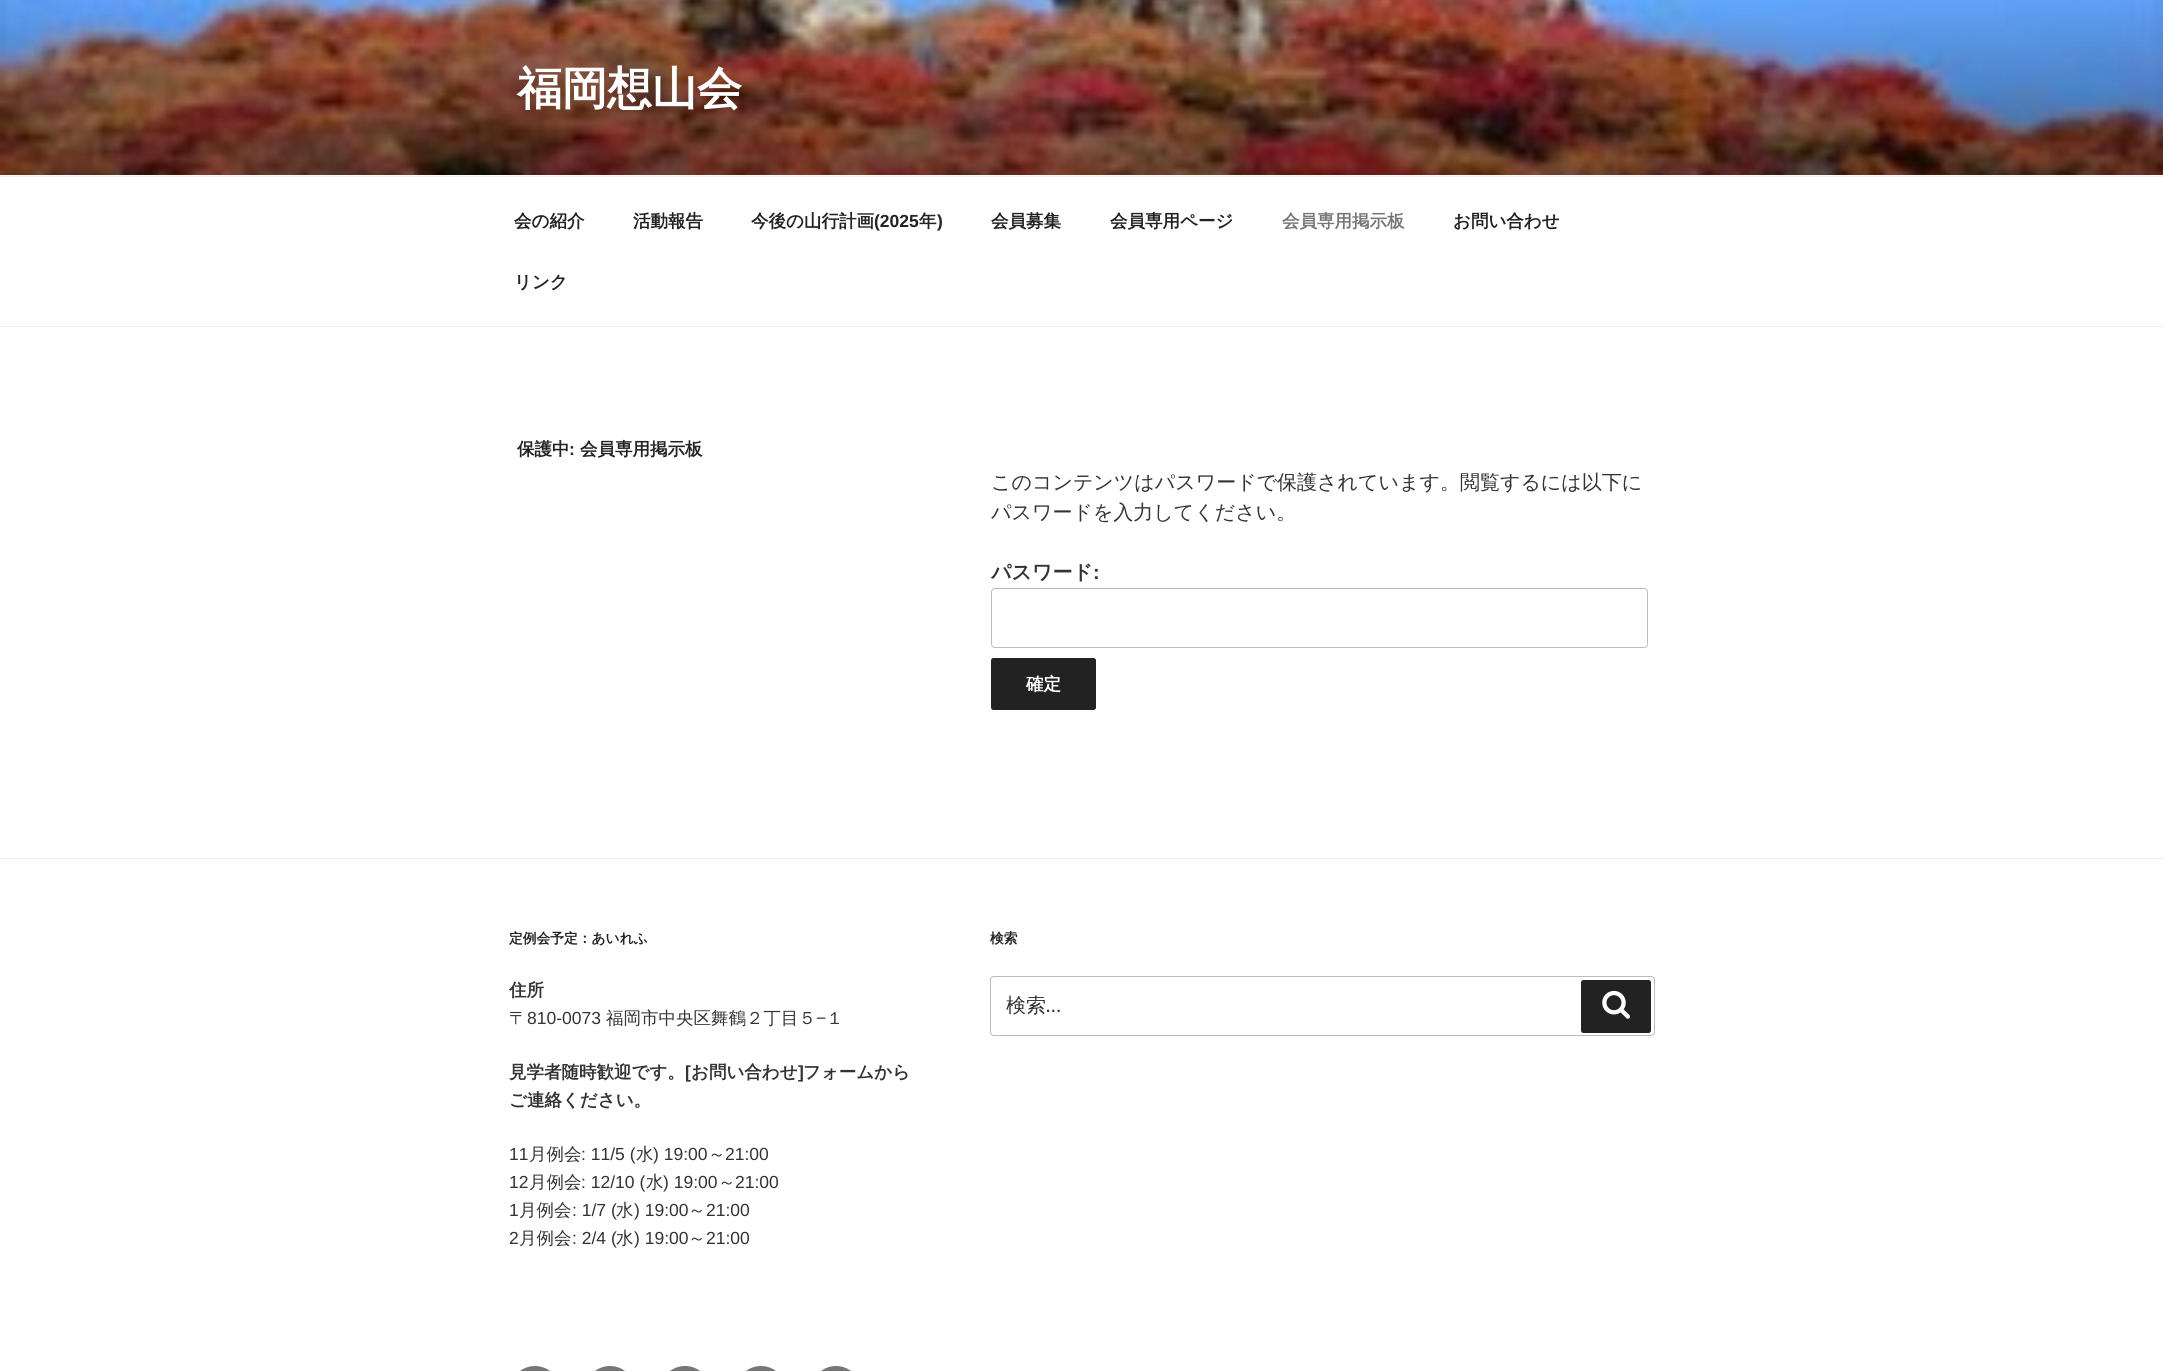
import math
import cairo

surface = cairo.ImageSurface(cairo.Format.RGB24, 2163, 1371)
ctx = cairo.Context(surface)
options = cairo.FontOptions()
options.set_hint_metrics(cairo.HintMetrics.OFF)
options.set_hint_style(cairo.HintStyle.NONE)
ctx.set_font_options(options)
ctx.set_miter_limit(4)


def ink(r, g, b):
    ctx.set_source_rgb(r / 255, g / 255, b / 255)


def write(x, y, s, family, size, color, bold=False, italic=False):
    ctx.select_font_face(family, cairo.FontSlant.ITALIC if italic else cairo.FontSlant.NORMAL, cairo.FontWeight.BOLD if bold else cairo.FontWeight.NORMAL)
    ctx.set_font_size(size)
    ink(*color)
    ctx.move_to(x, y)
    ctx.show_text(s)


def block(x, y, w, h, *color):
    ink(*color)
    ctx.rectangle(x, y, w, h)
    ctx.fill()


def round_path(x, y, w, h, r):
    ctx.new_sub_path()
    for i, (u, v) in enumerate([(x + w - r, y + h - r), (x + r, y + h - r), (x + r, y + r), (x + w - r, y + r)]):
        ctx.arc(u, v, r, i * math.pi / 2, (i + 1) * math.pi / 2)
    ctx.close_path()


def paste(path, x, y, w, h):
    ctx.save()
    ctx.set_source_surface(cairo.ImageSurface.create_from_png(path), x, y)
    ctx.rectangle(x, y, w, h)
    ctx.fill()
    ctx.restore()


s1 = dict(family="WenQuanYi Zen Hei", size=45, color=(255, 255, 255), bold=True)
s2 = dict(family="WenQuanYi Zen Hei", size=17.5, color=(34, 34, 34), bold=True)
s3 = dict(family="Liberation Sans", size=17.5, color=(34, 34, 34), bold=True)
s4 = dict(family="WenQuanYi Zen Hei", size=17.5, color=(118, 118, 118), bold=True)
s5 = dict(family="WenQuanYi Zen Hei Medium", size=20, color=(51, 51, 51))
s6 = dict(family="WenQuanYi Zen Hei", size=20, color=(51, 51, 51), bold=True)
s7 = dict(family="Liberation Sans", size=20, color=(51, 51, 51), bold=True)
s8 = dict(family="WenQuanYi Zen Hei", size=17.5, color=(255, 255, 255), bold=True)
s9 = dict(family="WenQuanYi Zen Hei", size=13.75, color=(34, 34, 34), bold=True)
s10 = dict(family="WenQuanYi Zen Hei", size=17.5, color=(51, 51, 51), bold=True)
s11 = dict(family="WenQuanYi Zen Hei Medium", size=17.5, color=(51, 51, 51))
s12 = dict(family="Liberation Sans", size=17.5, color=(51, 51, 51))
s13 = dict(family="Liberation Sans", size=17.5, color=(51, 51, 51), bold=True)
s14 = dict(family="Libre Franklin", size=20, color=(51, 51, 51))

ink(255, 255, 255)
ctx.paint()
block(0, 175, 2163, 1, 250, 250, 250)
paste("pic1.png", 0, 0, 2163, 175)
write(517, 104, "福岡想山会", **s1)
block(0, 176, 2163, 1, 238, 238, 238)
block(0, 326, 2163, 1, 238, 238, 238)
write(514, 227, "会の紹介", **s2)
write(633, 227, "活動報告", **s2)
write(751, 227, "今後の山行計画", **s2)
write(874, 227, "(2025", **s3)
write(919, 227, "年", **s2)
write(937, 227, ")", **s3)
write(991, 227, "会員募集", **s2)
write(1110, 227, "会員専用ページ", **s2)
write(1282, 227, "会員専用掲示板", **s4)
write(1453, 227, "お問い合わせ", **s2)
write(514, 288, "リンク", **s2)
write(517, 455, "保護中", **s2)
write(569, 455, ":", **s3)
write(580, 455, "会員専用掲示板", **s2)
write(991, 489, "このコンテンツはパスワードで保護されています。閲覧するには以下に", **s5)
write(991, 519, "パスワードを入力してください。", **s5)
write(991, 579, "パスワード", **s6)
write(1093, 579, ":", **s7)
round_path(991.5, 588.5, 656, 59, 3.5)
ink(187, 187, 187)
ctx.set_line_width(1)
ctx.stroke()
ink(34, 34, 34)
round_path(991, 658, 105, 52, 2.5)
ctx.fill()
write(1026, 690, "確定", **s8)
block(0, 858, 2163, 1, 238, 238, 238)
write(509, 943, "定例会予定：あいれふ", **s9)
write(509, 996, "住所", **s10)
write(509, 1024, "〒", **s11)
write(527, 1024, "810-0073", **s12)
write(606, 1024, "福岡市中央区舞鶴２丁目５", **s11)
write(816, 1024, "−", **s12)
write(826, 1024, "１", **s11)
write(509, 1078, "見学者随時歓迎です。", **s10)
write(685, 1078, "[", **s13)
write(691, 1078, "お問い合わせ", **s10)
write(798, 1078, "]", **s13)
write(803, 1078, "フォームから", **s10)
write(509, 1106, "ご連絡ください。", **s10)
write(509, 1160, "11", **s12)
write(529, 1160, "月例会", **s11)
write(581, 1160, ": 11/5 (", **s12)
write(636, 1160, "水", **s11)
write(653, 1160, ") 19:00", **s12)
write(708, 1160, "～", **s11)
write(725, 1160, "21:00", **s12)
write(509, 1188, "12", **s12)
write(529, 1188, "月例会", **s11)
write(581, 1188, ": 12/10 (", **s12)
write(646, 1188, "水", **s11)
write(663, 1188, ") 19:00", **s12)
write(718, 1188, "～", **s11)
write(735, 1188, "21:00", **s12)
write(509, 1216, "1", **s12)
write(519, 1216, "月例会", **s11)
write(572, 1216, ": 1/7 (", **s12)
write(616, 1216, "水", **s11)
write(634, 1216, ") 19:00", **s12)
write(688, 1216, "～", **s11)
write(706, 1216, "21:00", **s12)
write(509, 1244, "2", **s12)
write(519, 1244, "月例会", **s11)
write(572, 1244, ": 2/4 (", **s12)
write(616, 1244, "水", **s11)
write(634, 1244, ") 19:00", **s12)
write(688, 1244, "～", **s11)
write(706, 1244, "21:00", **s12)
write(990, 943, "検索", **s9)
round_path(990.5, 976.5, 664, 59, 3.5)
ink(187, 187, 187)
ctx.stroke()
write(1006, 1012, "検索", **s5)
write(1046, 1012, "…", **s14)
ink(34, 34, 34)
round_path(1581, 980, 70, 53, 2.5)
ctx.fill()
paste("pic2.png", 1602, 990, 28, 29)
ink(118, 118, 118)
round_path(510, 1366, 50, 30, 25)
ctx.fill()
round_path(585, 1366, 50, 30, 25)
ctx.fill()
round_path(660, 1366, 50, 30, 25)
ctx.fill()
round_path(736, 1366, 50, 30, 25)
ctx.fill()
round_path(811, 1366, 50, 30, 25)
ctx.fill()
surface.write_to_png("screenshot.png")
